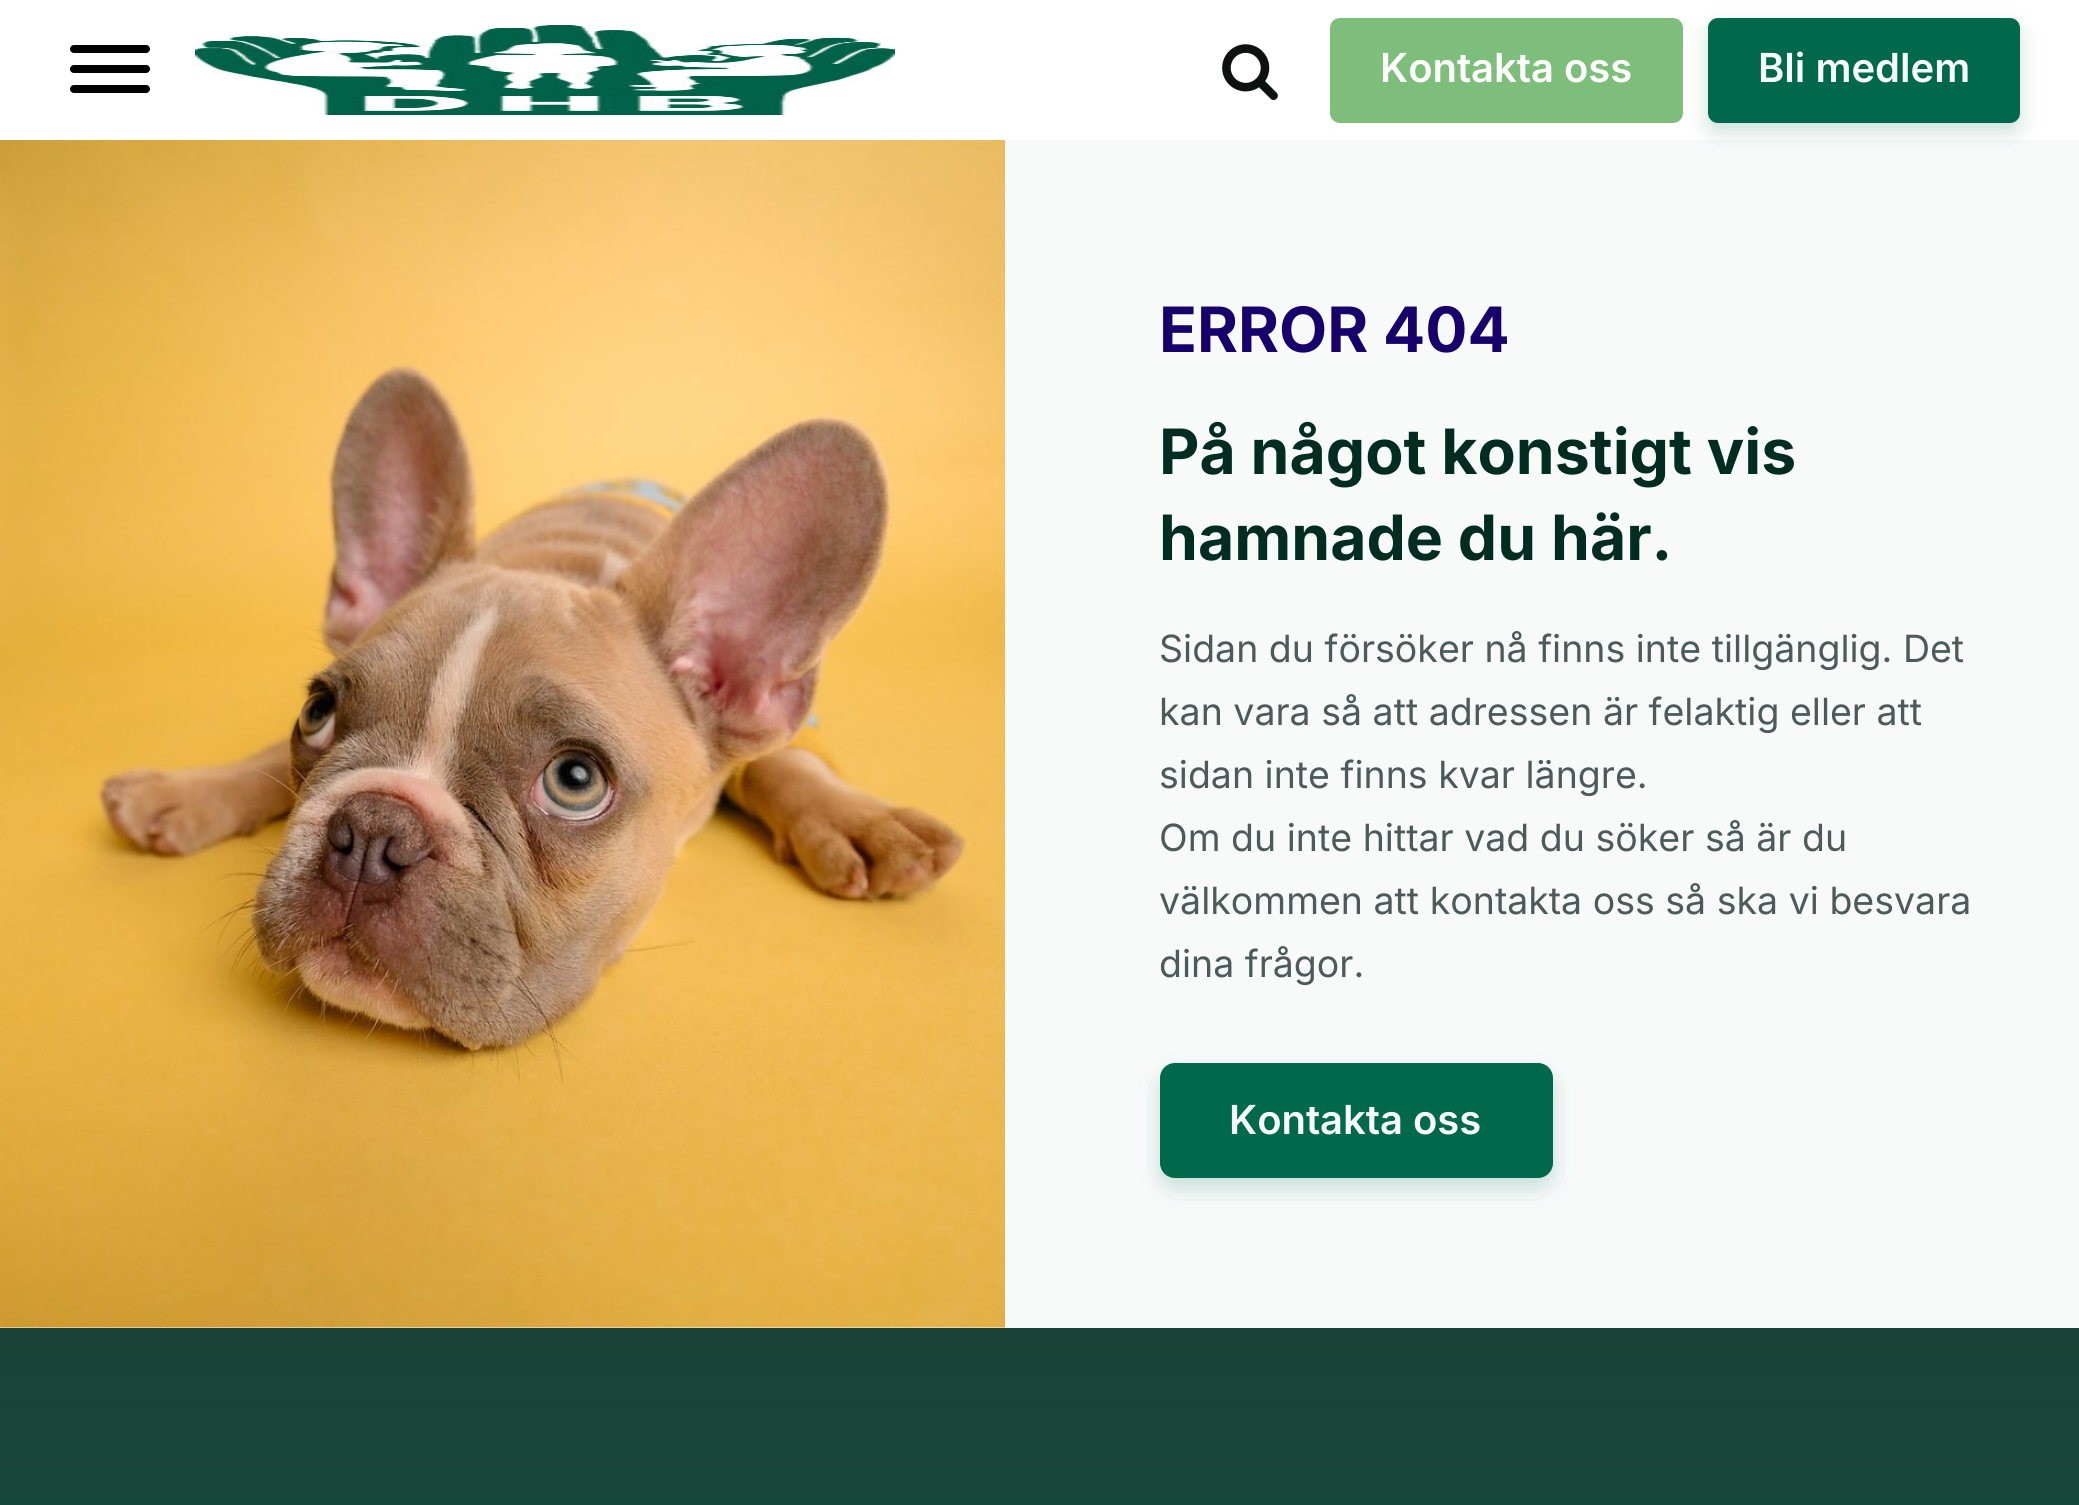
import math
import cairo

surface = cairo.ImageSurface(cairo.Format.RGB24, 2079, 1505)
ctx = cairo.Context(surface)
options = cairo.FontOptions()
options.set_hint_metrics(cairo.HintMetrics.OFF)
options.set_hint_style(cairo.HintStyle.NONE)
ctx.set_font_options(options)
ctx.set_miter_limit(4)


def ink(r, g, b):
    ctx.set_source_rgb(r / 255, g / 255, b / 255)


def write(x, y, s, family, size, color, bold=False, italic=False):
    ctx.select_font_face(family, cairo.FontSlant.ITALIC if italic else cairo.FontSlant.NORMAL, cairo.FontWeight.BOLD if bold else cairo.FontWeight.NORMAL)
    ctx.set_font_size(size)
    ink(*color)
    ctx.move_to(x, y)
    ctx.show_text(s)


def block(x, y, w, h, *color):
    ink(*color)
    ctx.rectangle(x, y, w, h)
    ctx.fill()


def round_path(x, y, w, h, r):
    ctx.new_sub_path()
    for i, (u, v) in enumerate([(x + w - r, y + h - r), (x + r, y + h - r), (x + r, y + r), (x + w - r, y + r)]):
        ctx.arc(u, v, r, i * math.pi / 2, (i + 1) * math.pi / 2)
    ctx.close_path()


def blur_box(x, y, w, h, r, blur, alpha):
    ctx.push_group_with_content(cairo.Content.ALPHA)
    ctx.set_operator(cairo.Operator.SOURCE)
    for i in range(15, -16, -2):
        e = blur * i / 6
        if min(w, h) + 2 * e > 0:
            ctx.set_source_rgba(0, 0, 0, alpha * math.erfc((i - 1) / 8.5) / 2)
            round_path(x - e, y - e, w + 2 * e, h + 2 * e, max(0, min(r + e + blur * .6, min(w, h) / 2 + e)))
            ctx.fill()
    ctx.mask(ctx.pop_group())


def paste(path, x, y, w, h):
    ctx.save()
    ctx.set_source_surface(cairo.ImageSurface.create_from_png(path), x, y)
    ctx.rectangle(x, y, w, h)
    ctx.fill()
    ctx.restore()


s1 = dict(family="Inter SemiBold", size=40, color=(255, 255, 255))
s2 = dict(family="Inter SemiBold", size=40, color=(249, 250, 250))
s3 = dict(family="Inter", size=62.5, color=(23, 0, 107), bold=True)
s4 = dict(family="Inter", size=62.5, color=(0, 45, 32), bold=True)
s5 = dict(family="Inter", size=37.5, color=(76, 91, 87))

ink(255, 255, 255)
ctx.paint()
ink(0, 0, 0)
round_path(70, 45, 80, 8, 4)
ctx.fill()
round_path(70, 65, 80, 8, 4)
ctx.fill()
round_path(70, 85, 80, 8, 4)
ctx.fill()
paste("pic1.png", 195, 25, 700, 90)
paste("pic2.png", 1222, 44, 56, 56)
ink(125, 191, 122)
round_path(1330, 18, 353, 105, 10)
ctx.fill()
write(1380, 82, "Kontakta oss", **s1)
block(0, 140, 2079, 1188, 248, 250, 250)
ink(0, 105, 75)
blur_box(1708, 28, 312, 105, 10, 11, 0.2)
ink(0, 105, 75)
round_path(1708, 18, 312, 105, 10)
ctx.fill()
write(1758, 82, "Bli medlem", **s2)
paste("pic3.png", 0, 140, 1005, 1188)
write(1159, 352, "ERROR 404", **s3)
write(1159, 474, "På något konstigt vis", **s4)
write(1159, 560, "hamnade du här.", **s4)
write(1159, 662, "Sidan du försöker nå finns inte tillgänglig. Det", **s5)
write(1159, 725, "kan vara så att adressen är felaktig eller att", **s5)
write(1159, 788, "sidan inte finns kvar längre.", **s5)
write(1159, 851, "Om du inte hittar vad du söker så är du", **s5)
write(1159, 914, "välkommen att kontakta oss så ska vi besvara", **s5)
write(1159, 977, "dina frågor.", **s5)
ink(0, 105, 75)
blur_box(1160, 1073, 393, 115, 15, 11, 0.2)
ink(0, 105, 75)
round_path(1160, 1063, 393, 115, 15)
ctx.fill()
write(1229, 1134, "Kontakta oss", **s2)
gradient = cairo.LinearGradient(1040, 1328, 1040, 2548)
gradient.add_color_stop_rgba(0, 0.102, 0.259, 0.212, 1)
gradient.add_color_stop_rgba(1, 0, 0.412, 0.294, 1)
ctx.set_source(gradient)
ctx.rectangle(0, 1328, 2079, 177)
ctx.fill()
surface.write_to_png("screenshot.png")
